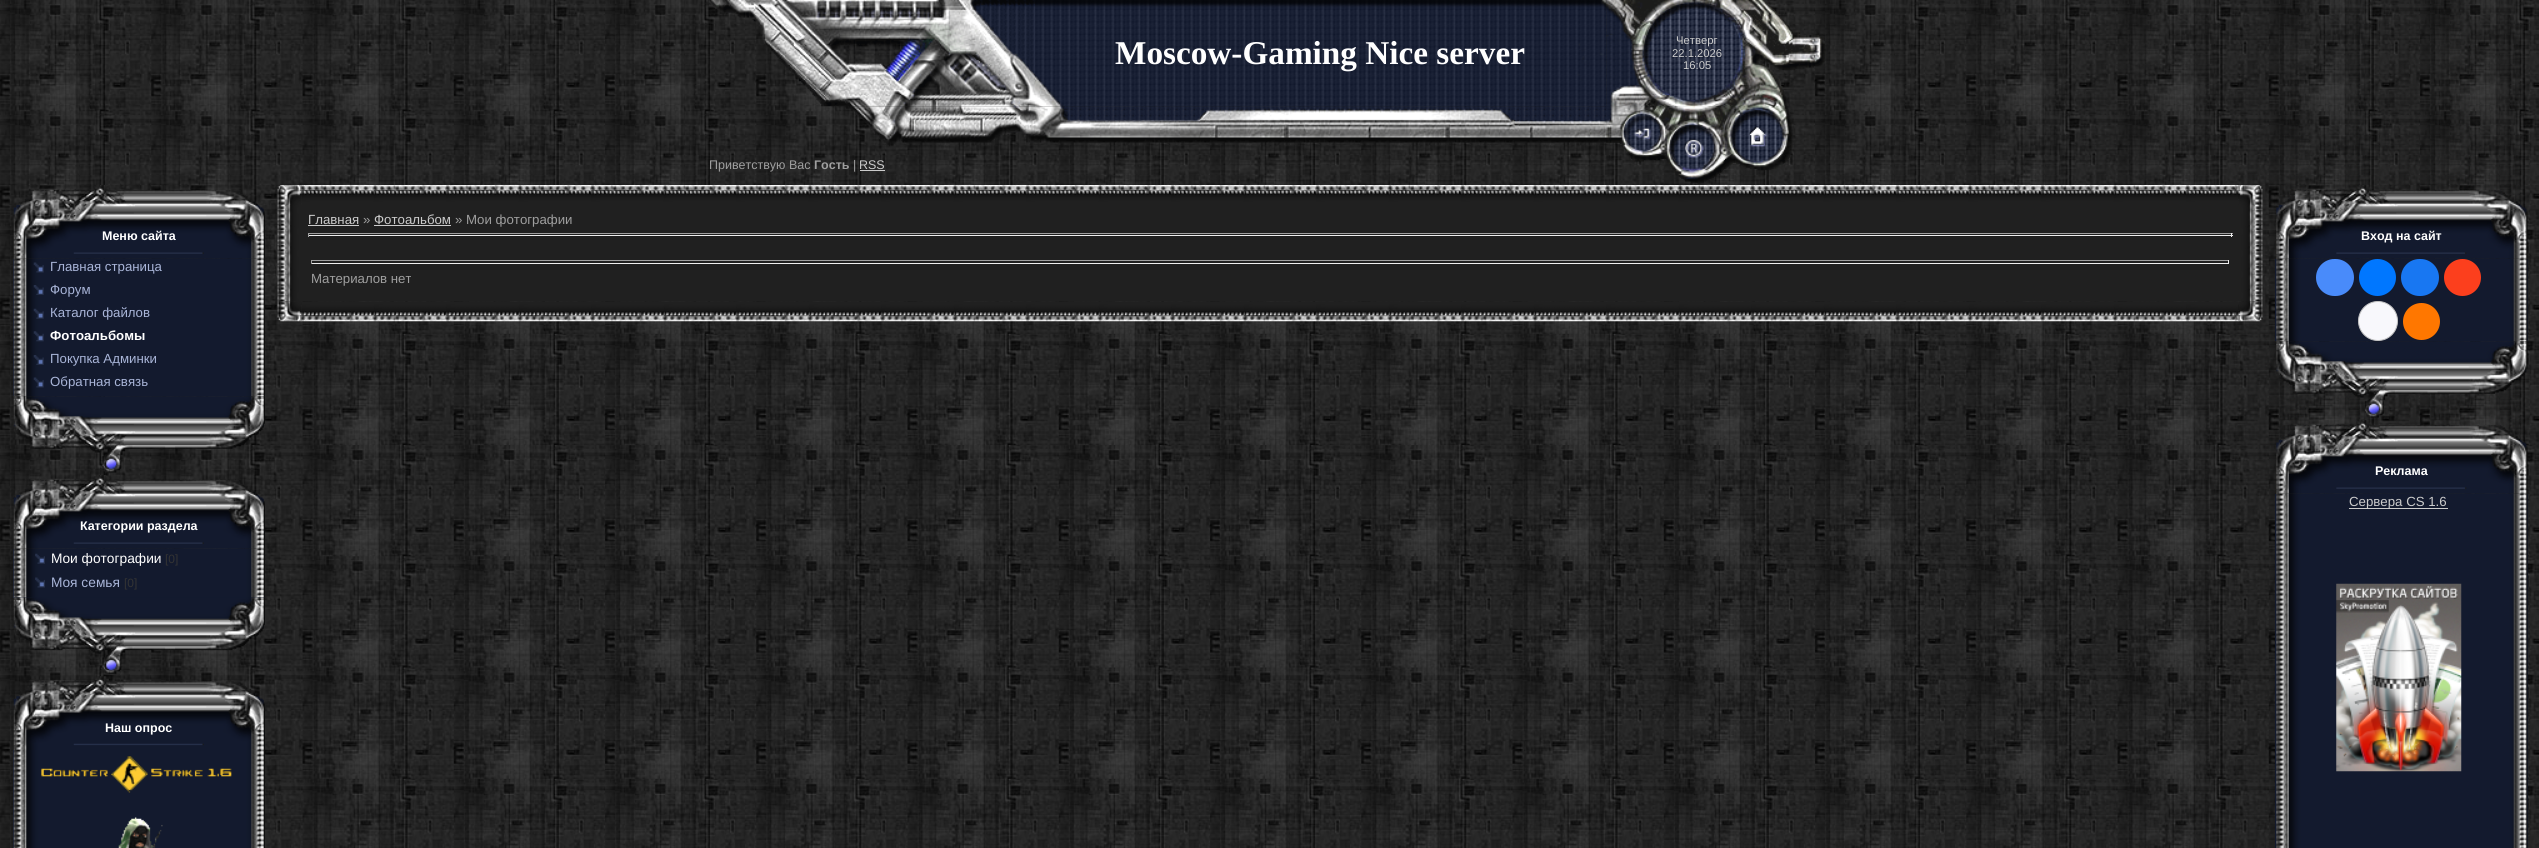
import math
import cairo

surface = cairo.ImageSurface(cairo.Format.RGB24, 2539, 848)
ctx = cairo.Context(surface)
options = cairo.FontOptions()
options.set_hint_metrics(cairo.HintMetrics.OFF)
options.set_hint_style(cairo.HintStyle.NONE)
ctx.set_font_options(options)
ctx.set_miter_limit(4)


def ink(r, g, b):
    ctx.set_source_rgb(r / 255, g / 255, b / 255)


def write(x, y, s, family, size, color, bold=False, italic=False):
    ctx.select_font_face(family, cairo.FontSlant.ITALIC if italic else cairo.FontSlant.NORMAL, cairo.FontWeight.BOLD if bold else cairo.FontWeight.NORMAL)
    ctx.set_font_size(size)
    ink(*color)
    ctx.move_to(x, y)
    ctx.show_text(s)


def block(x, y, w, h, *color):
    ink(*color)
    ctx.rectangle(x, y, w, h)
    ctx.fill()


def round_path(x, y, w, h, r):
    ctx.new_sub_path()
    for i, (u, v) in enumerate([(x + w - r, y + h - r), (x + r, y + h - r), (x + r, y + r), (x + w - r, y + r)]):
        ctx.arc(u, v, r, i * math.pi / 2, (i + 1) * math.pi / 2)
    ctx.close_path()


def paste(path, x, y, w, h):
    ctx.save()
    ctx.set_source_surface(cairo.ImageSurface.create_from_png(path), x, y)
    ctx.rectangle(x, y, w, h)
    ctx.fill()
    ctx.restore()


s1 = dict(family="Liberation Serif", size=33.25, color=(255, 255, 255), bold=True)
s2 = dict(family="Liberation Sans", size=11.25, color=(204, 204, 204))
s3 = dict(family="Liberation Sans", size=12.5, color=(159, 159, 159))
s4 = dict(family="Liberation Sans", size=12.5, color=(159, 159, 159), bold=True)
s5 = dict(family="Liberation Sans", size=12.5, color=(204, 204, 204))
s6 = dict(family="Liberation Sans", size=12.5, color=(255, 255, 255), bold=True)
s7 = dict(family="Liberation Sans", size=13.25, color=(169, 181, 216))
s8 = dict(family="Liberation Sans", size=13.25, color=(255, 255, 255), bold=True)
s9 = dict(family="Liberation Sans", size=13.75, color=(255, 255, 255))
s10 = dict(family="Liberation Sans", size=12, color=(51, 51, 51))
s11 = dict(family="Liberation Sans", size=13.75, color=(169, 181, 216))
s12 = dict(family="Liberation Sans", size=13.25, color=(204, 204, 204))
s13 = dict(family="Liberation Sans", size=13.25, color=(159, 159, 159))

ink(255, 255, 255)
ctx.paint()
paste("pic1.png", 0, 0, 2539, 848)
paste("pic3.png", 1035, 0, 572, 107)
paste("pic4.png", 1606, 0, 220, 107)
paste("pic5.png", 852, 106, 755, 41)
paste("pic2.png", 709, 0, 326, 107)
write(1115, 64, "Moscow-Gaming Nice server", **s1)
write(1676, 44, "Четверг", **s2)
write(1672, 57, "22.1.2026", **s2)
write(1683, 69, "16:05", **s2)
write(709, 169, "Приветствую Вас", **s3)
write(814, 169, "Гость", **s4)
write(853, 169, "|", **s3)
write(859, 169, "RSS", **s5)
block(860, 170, 25, 1, 204, 204, 204)
paste("pic6.png", 1606, 106, 187, 78)
paste("pic7.png", 1606, 106, 62, 56)
paste("pic8.png", 1667, 106, 58, 77)
paste("pic9.png", 1725, 106, 67, 63)
paste("pic10.png", 13, 185, 252, 74)
write(102, 240, "Меню сайта", **s6)
block(13, 259, 1, 137, 19, 26, 46)
paste("pic11.png", 13, 258, 252, 139)
paste("pic12.png", 33, 262, 11, 11)
write(50, 271, "Главная страница", **s7)
paste("pic13.png", 33, 285, 11, 10)
write(50, 294, "Форум", **s7)
paste("pic14.png", 33, 308, 11, 11)
write(50, 317, "Каталог файлов", **s7)
paste("pic15.png", 33, 331, 11, 11)
write(50, 340, "Фотоальбомы", **s8)
paste("pic13.png", 33, 355, 11, 10)
write(50, 363, "Покупка Админки", **s7)
paste("pic12.png", 33, 377, 11, 11)
write(50, 386, "Обратная связь", **s7)
paste("pic16.png", 13, 396, 252, 77)
paste("pic17.png", 13, 475, 252, 74)
write(80, 530, "Категории раздела", **s6)
block(13, 549, 252, 49, 19, 26, 46)
paste("pic18.png", 13, 548, 252, 50)
paste("pic19.png", 35, 553, 10, 11)
write(51, 563, "Мои фотографии", **s9)
write(165, 563, "[0]", **s10)
paste("pic20.png", 35, 577, 10, 11)
write(51, 587, "Моя семья", **s11)
write(124, 587, "[0]", **s10)
paste("pic21.png", 13, 597, 252, 77)
paste("pic22.png", 13, 676, 252, 74)
write(105, 732, "Наш опрос", **s6)
block(13, 750, 1, 98, 19, 26, 46)
paste("pic23.png", 13, 750, 252, 98)
paste("pic24.png", 41, 756, 191, 37)
paste("pic25.png", 118, 817, 45, 31)
paste("pic27.png", 301, 185, 1938, 20)
paste("pic26.png", 277, 185, 25, 20)
paste("pic28.png", 2238, 185, 25, 20)
paste("pic29.png", 277, 205, 24, 97)
block(301, 205, 1938, 96, 32, 32, 32)
write(308, 224, "Главная", **s12)
block(308, 225, 51, 1, 204, 204, 204)
write(363, 224, "»", **s13)
write(374, 224, "Фотоальбом", **s12)
block(374, 225, 77, 1, 204, 204, 204)
write(455, 224, "» Мои фотографии", **s13)
block(308, 233, 1925, 1, 159, 159, 159)
block(2231, 233, 1, 4, 238, 238, 238)
block(308, 235, 1925, 1, 238, 238, 238)
block(308, 233, 1, 4, 159, 159, 159)
block(311, 260, 1918, 1, 159, 159, 159)
block(2228, 260, 1, 4, 238, 238, 238)
block(311, 263, 1918, 1, 238, 238, 238)
block(311, 260, 1, 4, 159, 159, 159)
write(311, 283, "Материалов нет", **s13)
paste("pic30.png", 2239, 205, 24, 97)
paste("pic32.png", 301, 301, 1938, 21)
paste("pic31.png", 277, 301, 25, 21)
paste("pic33.png", 2238, 301, 25, 21)
paste("pic34.png", 2276, 185, 252, 74)
write(2361, 240, "Вход на сайт", **s6)
block(2275, 259, 253, 82, 19, 26, 46)
paste("pic35.png", 2276, 258, 252, 84)
ink(73, 139, 250)
round_path(2316, 259, 38, 37, 18.5)
ctx.fill()
ink(0, 119, 255)
ctx.arc(2377.5, 277.5, 18.5, 0, 2 * math.pi)
ctx.fill()
ink(24, 119, 242)
round_path(2401, 259, 38, 37, 18.5)
ctx.fill()
ink(252, 63, 29)
ctx.arc(2462.5, 277.5, 18.5, 0, 2 * math.pi)
ctx.fill()
ink(248, 248, 252)
ctx.arc(2378, 321, 19.5, 0, 2 * math.pi)
ctx.fill_preserve()
ink(196, 196, 196)
ctx.set_line_width(1)
ctx.stroke()
ink(255, 119, 0)
ctx.arc(2421.5, 321.5, 18.5, 0, 2 * math.pi)
ctx.fill()
paste("pic36.png", 2276, 341, 252, 77)
paste("pic37.png", 2276, 420, 252, 74)
write(2375, 475, "Реклама", **s6)
block(2275, 494, 253, 354, 19, 26, 46)
paste("pic38.png", 2276, 493, 252, 355)
block(2349, 508, 99, 1, 204, 204, 204)
write(2349, 506, "Сервера CS 1.6", **s12)
paste("pic39.png", 2336, 583, 126, 189)
surface.write_to_png("screenshot.png")
